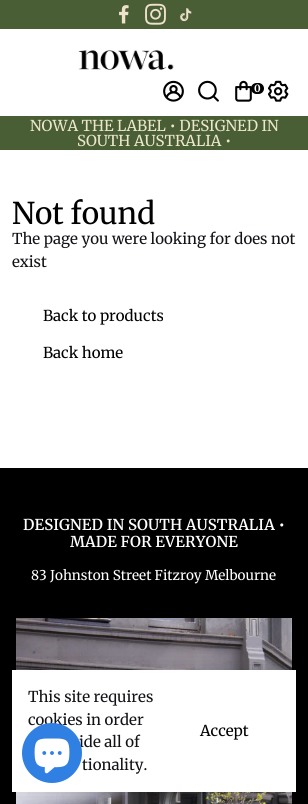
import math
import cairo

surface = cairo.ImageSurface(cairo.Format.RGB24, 308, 804)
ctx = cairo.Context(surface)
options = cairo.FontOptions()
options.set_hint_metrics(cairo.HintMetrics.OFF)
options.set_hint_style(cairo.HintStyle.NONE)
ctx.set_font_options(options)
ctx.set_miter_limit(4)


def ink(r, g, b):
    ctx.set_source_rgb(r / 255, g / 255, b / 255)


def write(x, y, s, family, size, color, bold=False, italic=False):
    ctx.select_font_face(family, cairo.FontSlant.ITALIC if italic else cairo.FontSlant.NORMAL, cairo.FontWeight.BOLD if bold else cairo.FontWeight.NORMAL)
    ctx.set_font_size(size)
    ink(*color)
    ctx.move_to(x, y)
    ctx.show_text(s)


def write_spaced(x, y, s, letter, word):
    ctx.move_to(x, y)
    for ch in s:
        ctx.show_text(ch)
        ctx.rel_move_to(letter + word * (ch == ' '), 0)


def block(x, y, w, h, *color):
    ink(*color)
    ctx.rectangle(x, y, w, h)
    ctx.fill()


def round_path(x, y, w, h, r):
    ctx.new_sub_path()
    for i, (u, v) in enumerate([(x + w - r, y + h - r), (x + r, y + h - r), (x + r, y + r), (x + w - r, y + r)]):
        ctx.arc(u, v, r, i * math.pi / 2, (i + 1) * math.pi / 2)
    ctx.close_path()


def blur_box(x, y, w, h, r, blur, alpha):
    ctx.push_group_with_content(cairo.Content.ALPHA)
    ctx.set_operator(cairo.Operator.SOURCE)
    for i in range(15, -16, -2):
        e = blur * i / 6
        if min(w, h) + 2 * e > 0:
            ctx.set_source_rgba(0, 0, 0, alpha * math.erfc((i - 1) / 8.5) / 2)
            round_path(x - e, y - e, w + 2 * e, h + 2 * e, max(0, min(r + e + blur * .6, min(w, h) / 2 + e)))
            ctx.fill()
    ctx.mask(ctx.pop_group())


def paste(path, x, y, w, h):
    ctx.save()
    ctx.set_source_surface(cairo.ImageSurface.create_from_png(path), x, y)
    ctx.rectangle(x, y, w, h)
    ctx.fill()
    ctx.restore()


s1 = dict(family="Merriweather", size=10, color=(255, 255, 255), bold=True)
s2 = dict(family="Merriweather", size=15, color=(236, 231, 202))
s3 = dict(family="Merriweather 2", size=30, color=(0, 0, 0))
s4 = dict(family="Merriweather", size=15, color=(18, 19, 23))
s5 = dict(family="Merriweather", size=15, color=(0, 0, 0))
s6 = dict(family="Merriweather", size=13.5, color=(255, 255, 255))

ink(255, 255, 255)
ctx.paint()
block(0, 0, 308, 29, 73, 94, 53)
paste("pic1.png", 119, 5, 10, 19)
paste("pic2.png", 145, 3, 21, 22)
paste("pic3.png", 180, 8, 12, 14)
paste("pic4.png", 78, 50, 96, 20)
paste("pic5.png", 163, 80, 21, 22)
paste("pic6.png", 198, 80, 21, 22)
paste("pic7.png", 235, 80, 17, 22)
ink(0, 0, 0)
round_path(251, 83, 13, 11, 5.5)
ctx.fill()
write(254, 92, "0", **s1)
paste("pic8.png", 268, 80, 21, 22)
block(0, 116, 308, 34, 73, 94, 53)
write(30, 131, "NOWA THE LABEL • DESIGNED IN", **s2)
write(77, 146, "SOUTH AUSTRALIA •", **s2)
write(12, 224, "Not found", **s3)
write(12, 244, "The page you were looking for does not", **s4)
write(12, 267, "exist", **s4)
write(43, 321, "Back to products", **s5)
write(43, 358, "Back home", **s5)
block(0, 468, 308, 336, 0, 0, 0)
ctx.select_font_face("Merriweather SemiBold")
ink(255, 255, 255)
write_spaced(23, 530, "DESIGNED IN SOUTH AUSTRALIA •", 0.1, 0)
write_spaced(70, 547, "MADE FOR EVERYONE", 0.1, 0)
write(31, 580, "83 Johnston Street Fitzroy Melbourne", **s6)
paste("pic9.png", 16, 618, 276, 186)
ink(0, 0, 0)
blur_box(12, 670, 284, 122, 0, 12, 0.16)
block(12, 670, 284, 122, 255, 255, 255)
write(28, 702, "This site requires", **s4)
write(28, 725, "cookies in order", **s4)
write(79, 747, "ide all of", **s4)
write(82, 770, "tionality.", **s4)
write(200, 736, "Accept", **s5)
ink(47, 128, 226)
ctx.new_path()
ctx.arc(52, 753, 30, 0, 2 * math.pi)
ctx.fill()
paste("pic10.png", 34, 738, 36, 36)
surface.write_to_png("screenshot.png")
